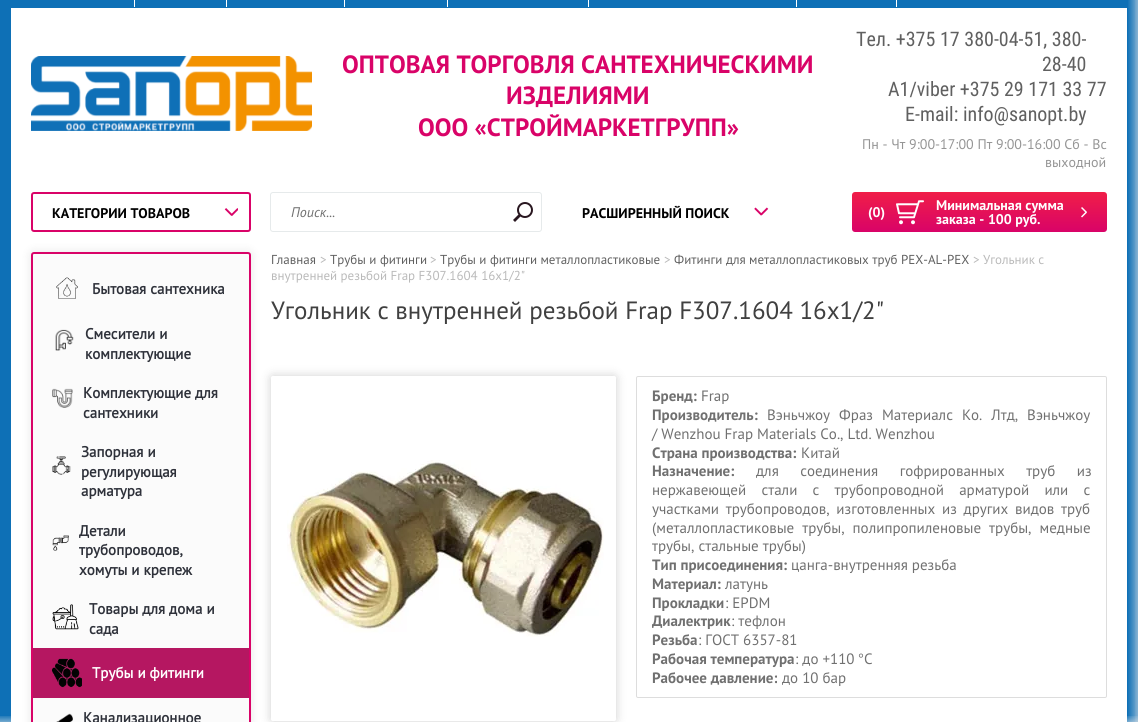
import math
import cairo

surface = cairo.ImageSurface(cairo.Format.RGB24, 1138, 722)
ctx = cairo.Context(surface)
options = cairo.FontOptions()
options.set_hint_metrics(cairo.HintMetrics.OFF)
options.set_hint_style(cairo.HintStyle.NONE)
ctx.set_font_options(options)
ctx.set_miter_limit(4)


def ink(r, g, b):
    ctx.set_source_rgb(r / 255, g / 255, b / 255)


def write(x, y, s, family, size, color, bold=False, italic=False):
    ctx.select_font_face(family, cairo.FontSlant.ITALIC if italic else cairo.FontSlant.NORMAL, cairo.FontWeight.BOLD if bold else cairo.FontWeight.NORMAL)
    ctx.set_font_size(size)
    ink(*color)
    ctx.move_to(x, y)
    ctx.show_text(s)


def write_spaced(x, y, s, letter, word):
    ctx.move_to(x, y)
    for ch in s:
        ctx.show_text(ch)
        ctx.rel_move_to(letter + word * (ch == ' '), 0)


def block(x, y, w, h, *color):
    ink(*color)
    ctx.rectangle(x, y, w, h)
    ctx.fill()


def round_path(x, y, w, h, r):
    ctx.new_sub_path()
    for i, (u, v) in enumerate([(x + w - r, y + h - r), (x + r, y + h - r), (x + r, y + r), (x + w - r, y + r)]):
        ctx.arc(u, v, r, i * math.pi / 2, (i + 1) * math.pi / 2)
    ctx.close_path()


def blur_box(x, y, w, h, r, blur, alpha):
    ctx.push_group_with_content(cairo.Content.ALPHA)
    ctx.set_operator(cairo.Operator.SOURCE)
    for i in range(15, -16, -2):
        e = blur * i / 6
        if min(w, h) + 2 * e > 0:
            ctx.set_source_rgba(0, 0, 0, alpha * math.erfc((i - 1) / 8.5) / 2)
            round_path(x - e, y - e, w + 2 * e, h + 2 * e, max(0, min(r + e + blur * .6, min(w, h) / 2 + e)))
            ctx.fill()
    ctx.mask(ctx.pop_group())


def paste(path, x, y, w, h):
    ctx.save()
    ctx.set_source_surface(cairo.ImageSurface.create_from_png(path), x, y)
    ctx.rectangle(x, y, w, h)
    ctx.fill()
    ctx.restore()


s1 = dict(family="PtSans", size=25, color=(217, 3, 104), bold=True)
s2 = dict(family="Roboto Condensed", size=20, color=(96, 96, 96))
s3 = dict(family="PtSans", size=14, color=(149, 149, 149))
s4 = dict(family="PtSans", size=14, color=(0, 0, 0), bold=True)
s5 = dict(family="PtSans", size=14, color=(112, 112, 112), italic=True)
s6 = dict(family="PtSans", size=14, color=(255, 255, 255), bold=True)
s7 = dict(family="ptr", size=15, color=(46, 49, 58), bold=True)
s8 = dict(family="ptr", size=15, color=(255, 255, 255), bold=True)
s9 = dict(family="PtSans", size=13, color=(96, 96, 96))
s10 = dict(family="PtSans", size=13, color=(186, 186, 186))
s11 = dict(family="PtSans", size=25, color=(64, 64, 64))
s12 = dict(family="PtSans", size=15, color=(112, 112, 112), bold=True)
s13 = dict(family="PtSans", size=15, color=(112, 112, 112))
s14 = dict(family="Liberation Sans", size=15, color=(112, 112, 112))

ink(235, 235, 235)
ctx.paint()
paste("pic1.png", 0, 0, 1138, 722)
block(11, 8, 1116, 714, 255, 255, 255)
block(134, 0, 1, 7, 255, 255, 255)
block(226, 0, 1, 7, 255, 255, 255)
block(344, 0, 1, 7, 255, 255, 255)
block(447, 0, 1, 7, 255, 255, 255)
block(588, 0, 1, 7, 255, 255, 255)
block(796, 0, 1, 7, 255, 255, 255)
block(896, 0, 1, 7, 255, 255, 255)
paste("pic2.png", 31, 56, 281, 75)
write(342, 73, "ОПТОВАЯ ТОРГОВЛЯ САНТЕХНИЧЕСКИМИ", **s1)
write(506, 104, "ИЗДЕЛИЯМИ", **s1)
write(418, 136, "ООО «СТРОЙМАРКЕТГРУПП»", **s1)
write(856, 46, "Тел. +375 17 380-04-51, 380-", **s2)
write(1042, 71, "28-40", **s2)
write(888, 96, "A1/viber +375 29 171 33 77", **s2)
write(905, 121, "E-mail: info@sanopt.by", **s2)
write(862, 149, "Пн - Чт 9:00-17:00 Пт 9:00-16:00 Сб - Вс", **s3)
write(1045, 167, "выходной", **s3)
round_path(32, 193, 218, 38, 2)
ink(217, 3, 104)
ctx.stroke()
write(52, 218, "КАТЕГОРИИ ТОВАРОВ", **s4)
paste("pic3.png", 224, 208, 14, 8)
round_path(270.5, 192.5, 271, 39, 2.5)
ink(230, 234, 235)
ctx.set_line_width(1)
ctx.stroke()
write(291, 217, "Поиск...", **s5)
paste("pic4.png", 513, 202, 20, 20)
write(582, 218, "РАСШИРЕННЫЙ ПОИСК", **s4)
paste("pic5.png", 754, 207, 15, 9)
gradient = cairo.LinearGradient(980, 192, 980, 232)
gradient.add_color_stop_rgba(0, 0.941, 0.118, 0.282, 1)
gradient.add_color_stop_rgba(1, 0.851, 0.012, 0.408, 1)
ctx.set_source(gradient)
round_path(852, 192, 255, 40, 3)
ctx.fill()
paste("pic6.png", 1081, 207, 6, 11)
paste("pic7.png", 896, 200, 28, 25)
write(868, 217, "(0)", **s6)
write(936, 210, "Минимальная сумма", **s6)
write(936, 224, "заказа - 100 руб.", **s6)
ink(0, 0, 0)
blur_box(31, 252, 220, 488, 3, 5, 0.1)
ink(251, 251, 251)
round_path(32, 253, 218, 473, 2)
ctx.fill_preserve()
ink(217, 3, 104)
ctx.set_line_width(2)
ctx.stroke()
paste("pic8.png", 56, 277, 22, 22)
write(92, 294, "Бытовая сантехника", **s7)
paste("pic9.png", 55, 329, 19, 22)
write(85, 339, "Смесители и", **s7)
write(85, 359, "комплектующие", **s7)
paste("pic10.png", 52, 388, 21, 20)
write(83, 398, "Комплектующие для", **s7)
write(83, 418, "сантехники", **s7)
paste("pic11.png", 52, 456, 19, 19)
write(81, 457, "Запорная и", **s7)
write(81, 477, "регулирующая", **s7)
write(81, 496, "арматура", **s7)
paste("pic12.png", 52, 535, 17, 16)
write(79, 536, "Детали", **s7)
write(79, 555, "трубопроводов,", **s7)
write(79, 575, "хомуты и крепеж", **s7)
paste("pic13.png", 52, 604, 27, 26)
write(89, 614, "Товары для дома и", **s7)
write(89, 634, "сада", **s7)
block(33, 648, 216, 50, 181, 23, 97)
paste("pic14.png", 52, 658, 30, 30)
write(92, 678, "Трубы и фитинги", **s8)
paste("pic15.png", 56, 713, 17, 9)
write(83, 723, "Канализационное", **s7)
write(271, 264, "Главная", **s9)
write(320, 264, ">", **s10)
write(330, 264, "Трубы и фитинги", **s9)
write(430, 264, ">", **s10)
write(440, 264, "Трубы и фитинги металлопластиковые", **s9)
write(664, 264, ">", **s10)
write(674, 264, "Фитинги для металлопластиковых труб PEX-AL-PEX", **s9)
write(973, 264, "> Угольник с", **s10)
write(271, 280, "внутренней резьбой Frap F307.1604 16х1/2\"", **s10)
write(271, 319, "Угольник с внутренней резьбой Frap F307.1604 16х1/2\"", **s11)
ctx.save()
ctx.set_fill_rule(cairo.FillRule.EVEN_ODD)
ctx.new_path()
ctx.move_to(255, 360)
ctx.line_to(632, 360)
ctx.line_to(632, 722)
ctx.line_to(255, 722)
ctx.close_path()
ctx.move_to(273, 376)
ctx.line_to(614, 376)
ctx.curve_to(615, 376, 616, 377, 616, 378)
ctx.line_to(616, 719)
ctx.curve_to(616, 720, 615, 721, 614, 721)
ctx.line_to(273, 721)
ctx.curve_to(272, 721, 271, 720, 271, 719)
ctx.line_to(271, 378)
ctx.curve_to(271, 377, 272, 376, 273, 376)
ctx.close_path()
ctx.clip()
ink(0, 0, 0)
blur_box(271, 376, 345, 345, 2, 5, 0.19)
ctx.restore()
paste("pic16.png", 287, 460, 317, 177)
round_path(636.5, 376.5, 470, 321, 1.5)
ink(221, 221, 221)
ctx.set_line_width(1)
ctx.stroke()
write(652, 401, "Бренд:", **s12)
write(701, 401, "Frap", **s13)
write(652, 420, "Производитель:", **s12)
ctx.select_font_face("PtSans")
write_spaced(767, 420, "Вэньчжоу Фраз Материалс Ко. Лтд, Вэньчжоу", 0, 5)
write(652, 439, "/ Wenzhou Frap Materials Co., Ltd. Wenzhou", **s13)
write(652, 458, "Страна производства:", **s12)
write(801, 458, "Китай", **s13)
write(652, 476, "Назначение:", **s12)
ctx.select_font_face("PtSans")
write_spaced(756, 476, "для соединения гофрированных труб из", 0, 17.5)
write_spaced(652, 495, "нержавеющей стали с трубопроводной арматурой или с", 0, 11.25)
write_spaced(652, 514, "участками трубопроводов, изготовленных из других видов труб", 0, 2.75)
write_spaced(652, 533, "(металлопластиковые трубы, полипропиленовые трубы, медные", 0, 4)
write(652, 551, "трубы, стальные трубы)", **s13)
write(652, 570, "Тип присоединения:", **s12)
write(791, 570, "цанга-внутренняя резьба", **s13)
write(652, 589, "Материал:", **s12)
write(725, 589, "латунь", **s13)
write(652, 608, "Прокладки", **s12)
write(725, 608, ": EPDM", **s13)
write(652, 626, "Диалектрик", **s12)
write(731, 626, ": тефлон", **s13)
write(652, 645, "Резьба", **s12)
write(698, 645, ": ГОСТ 6357-81", **s13)
write(652, 664, "Рабочая температура", **s12)
write(795, 664, ": до +110", **s13)
write(858, 664, "°", **s14)
write(864, 664, "С", **s13)
write(652, 683, "Рабочее давление:", **s12)
write(782, 683, "до 10 бар", **s13)
surface.write_to_png("screenshot.png")
